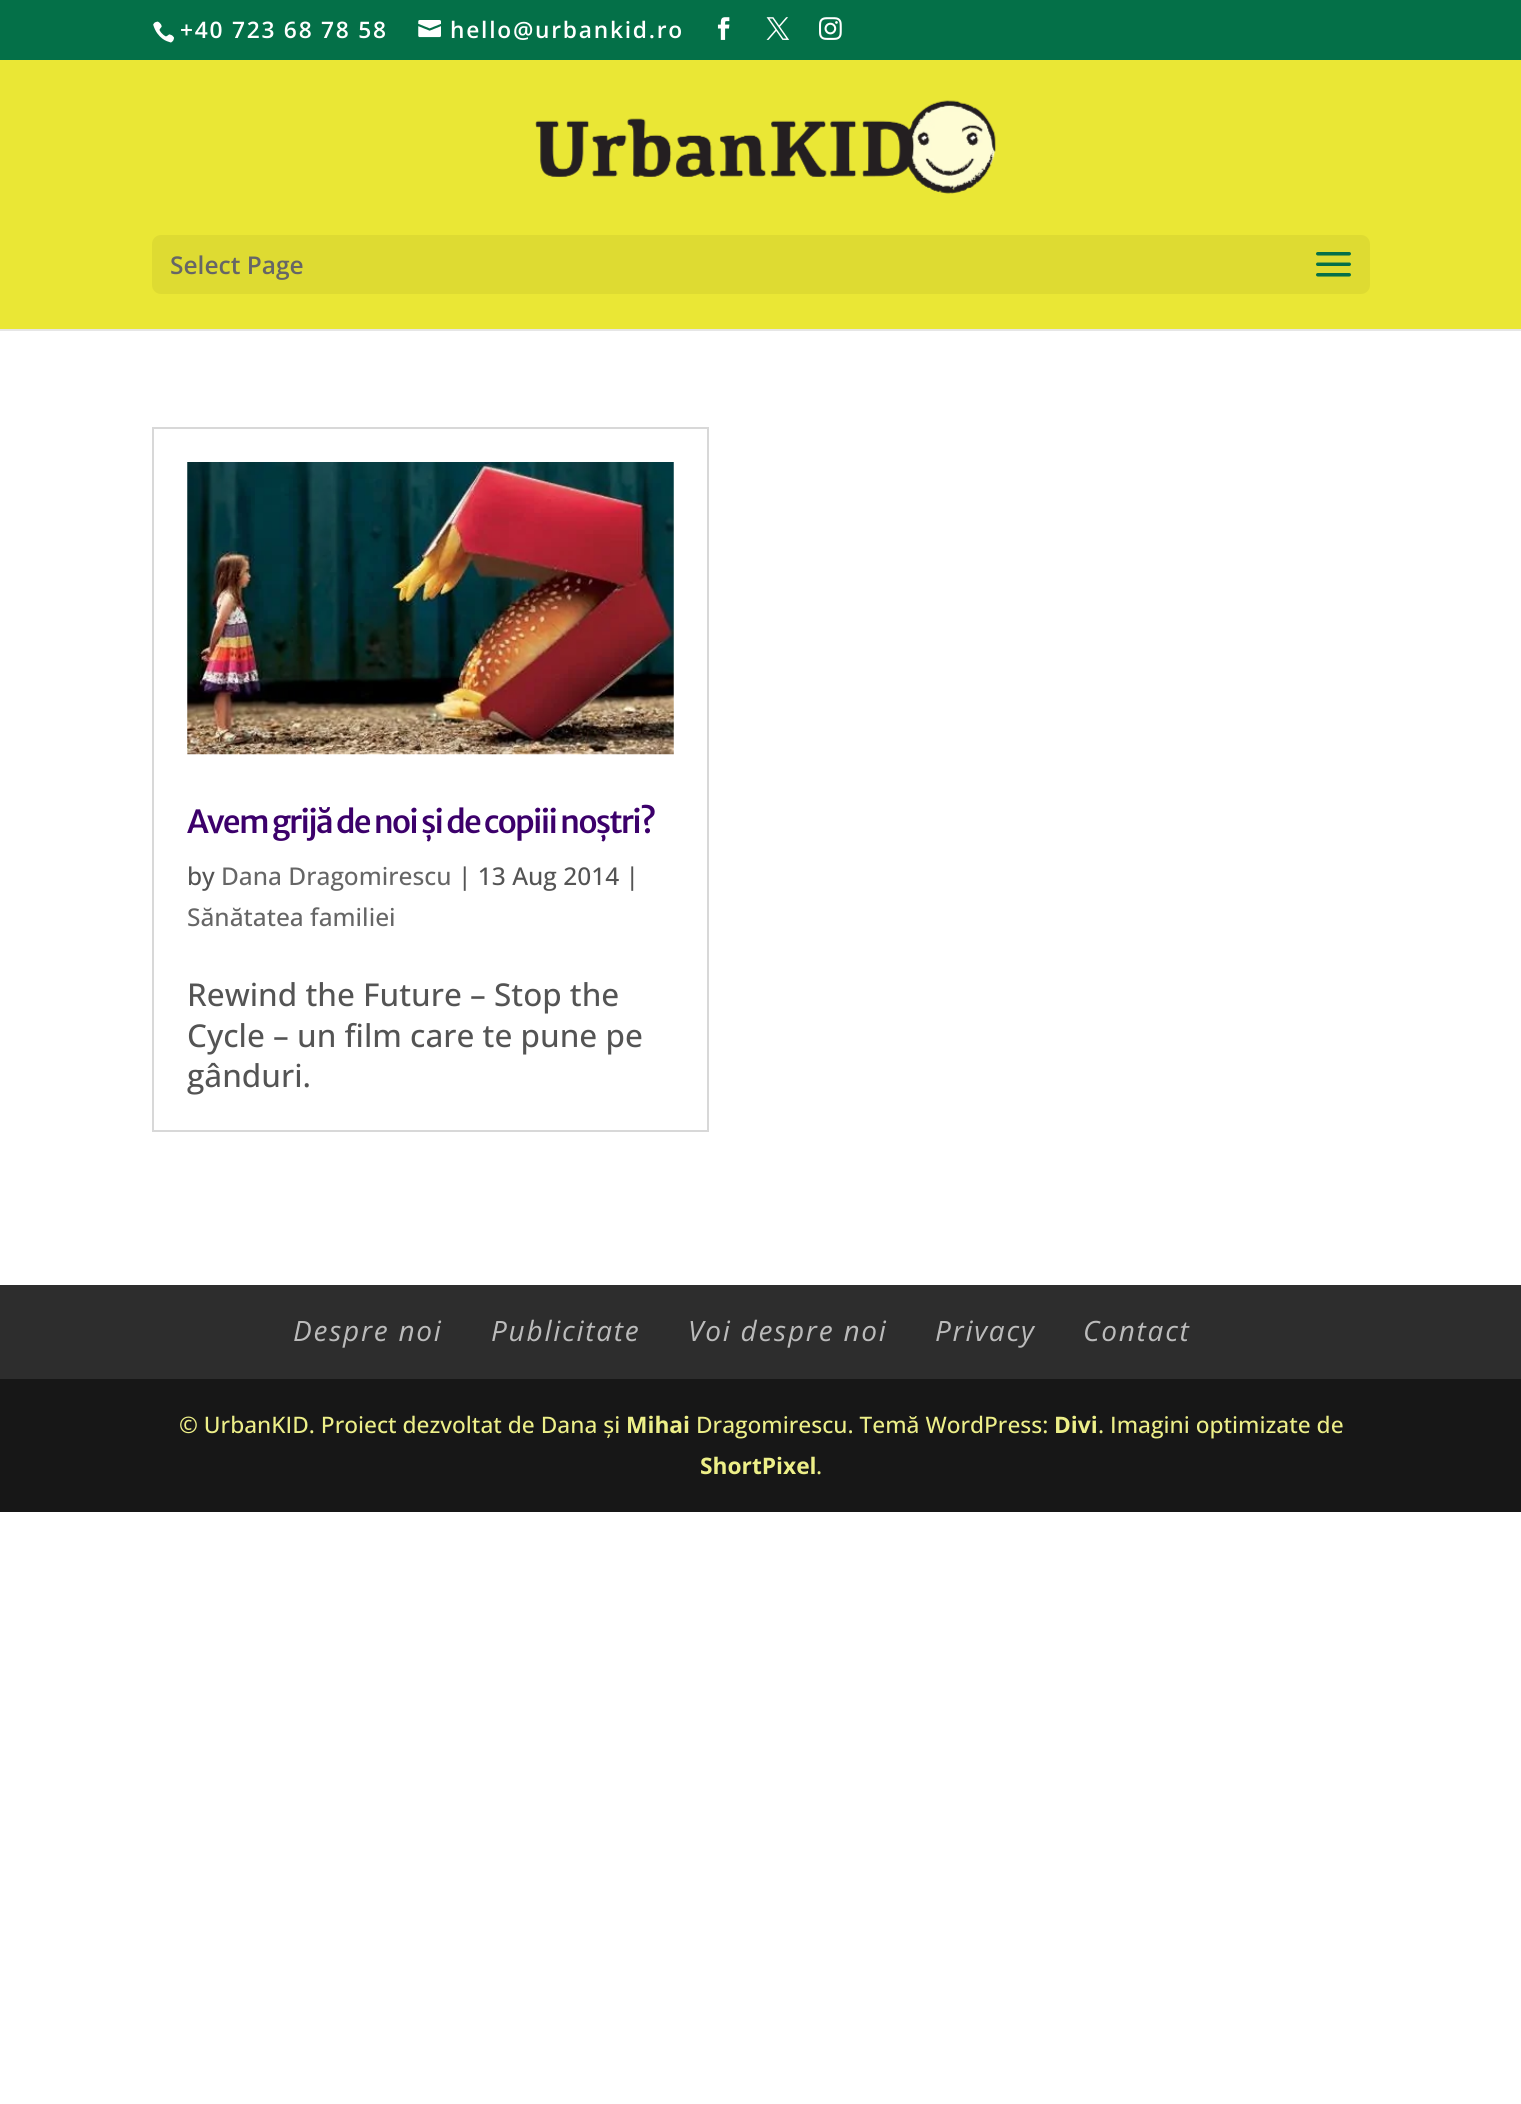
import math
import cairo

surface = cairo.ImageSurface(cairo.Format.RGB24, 1521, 2104)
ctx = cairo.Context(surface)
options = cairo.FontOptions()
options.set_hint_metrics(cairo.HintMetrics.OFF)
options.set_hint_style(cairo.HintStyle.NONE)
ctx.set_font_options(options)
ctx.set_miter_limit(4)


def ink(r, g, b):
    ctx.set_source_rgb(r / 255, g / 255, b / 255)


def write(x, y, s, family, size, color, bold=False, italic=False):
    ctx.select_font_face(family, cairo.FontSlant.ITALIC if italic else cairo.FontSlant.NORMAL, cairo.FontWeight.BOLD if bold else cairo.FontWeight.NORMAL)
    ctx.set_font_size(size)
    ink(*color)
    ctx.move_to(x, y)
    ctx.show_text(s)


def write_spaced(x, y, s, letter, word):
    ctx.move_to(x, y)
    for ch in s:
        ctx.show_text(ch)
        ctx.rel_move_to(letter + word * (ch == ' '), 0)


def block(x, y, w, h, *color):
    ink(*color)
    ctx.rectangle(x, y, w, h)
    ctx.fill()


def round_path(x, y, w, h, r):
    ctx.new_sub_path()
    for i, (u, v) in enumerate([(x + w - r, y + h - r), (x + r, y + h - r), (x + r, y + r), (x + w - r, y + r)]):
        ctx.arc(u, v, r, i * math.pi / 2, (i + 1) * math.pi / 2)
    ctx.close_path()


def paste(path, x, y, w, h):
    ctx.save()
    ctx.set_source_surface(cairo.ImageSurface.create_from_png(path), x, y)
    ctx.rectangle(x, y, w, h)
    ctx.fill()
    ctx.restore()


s1 = dict(family="Open Sans SemiBold", size=24.5, color=(102, 102, 102))
s2 = dict(family="Open Sans Medium", size=24.5, color=(84, 84, 84))
s3 = dict(family="Open Sans Medium", size=24.5, color=(102, 102, 102))
s4 = dict(family="Open Sans Medium", size=31.5, color=(84, 84, 84))
s5 = dict(family="Open Sans Medium", size=22.75, color=(237, 239, 136))
s6 = dict(family="Open Sans", size=22.75, color=(237, 239, 136), bold=True)

ink(255, 255, 255)
ctx.paint()
block(0, 0, 1521, 60, 4, 112, 72)
paste("pic1.png", 153, 21, 21, 22)
ctx.select_font_face("Open Sans SemiBold")
ctx.set_font_size(22.75)
ink(255, 255, 255)
write_spaced(180, 38, "+40 723 68 78 58", 1.75, 0)
paste("pic2.png", 418, 20, 23, 18)
write_spaced(450, 38, "hello@urbankid.ro", 1.75, 0)
paste("pic3.png", 717, 17, 13, 23)
paste("pic4.png", 766, 17, 24, 23)
paste("pic5.png", 819, 17, 23, 23)
ink(230, 230, 230)
ctx.new_path()
ctx.move_to(0, 329)
ctx.line_to(0, 331)
ctx.line_to(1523, 331)
ctx.line_to(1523, 61)
ctx.line_to(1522, 61)
ctx.line_to(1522, 329)
ctx.close_path()
ctx.fill()
block(0, 60, 1521, 269, 234, 231, 53)
paste("pic6.png", 535, 100, 461, 94)
ink(222, 219, 50)
round_path(152, 235, 1218, 59, 9)
ctx.fill()
write(170, 274, "Select Page", **s1)
paste("pic7.png", 1316, 252, 35, 25)
ctx.rectangle(153, 428, 555, 703)
ink(216, 216, 216)
ctx.stroke()
paste("pic8.png", 187, 462, 487, 293)
ctx.select_font_face("Merriweather Sans Medium")
ctx.set_font_size(31.5)
ink(60, 0, 107)
write_spaced(187, 833, "Avem grijă de noi și de copiii noștri?", -1.75, 0)
write(187, 885, "by", **s2)
write(221, 885, "Dana Dragomirescu", **s3)
write(458, 885, "| 13 Aug 2014 |", **s2)
write(187, 926, "Sănătatea familiei", **s3)
write(187, 1006, "Rewind the Future – Stop the", **s4)
write(187, 1047, "Cycle – un film care te pune pe", **s4)
write(187, 1087, "gânduri.", **s4)
block(0, 1285, 1521, 94, 45, 45, 45)
ctx.select_font_face("Open Sans", cairo.FontSlant.ITALIC)
ctx.set_font_size(28)
ink(187, 187, 187)
write_spaced(293, 1341, "Despre noi", 1.75, 0)
write_spaced(491, 1341, "Publicitate", 1.75, 0)
write_spaced(688, 1341, "Voi despre noi", 1.75, 0)
write_spaced(935, 1341, "Privacy", 1.75, 0)
write_spaced(1083, 1341, "Contact", 1.75, 0)
block(0, 1379, 1521, 133, 23, 23, 23)
write(179, 1433, "© UrbanKID. Proiect dezvoltat de Dana și", **s5)
write(626, 1433, "Mihai", **s6)
write(696, 1433, "Dragomirescu. Temă WordPress:", **s5)
write(1054, 1433, "Divi", **s6)
write(1098, 1433, ". Imagini optimizate de", **s5)
write(700, 1474, "ShortPixel", **s6)
write(816, 1474, ".", **s5)
surface.write_to_png("screenshot.png")
